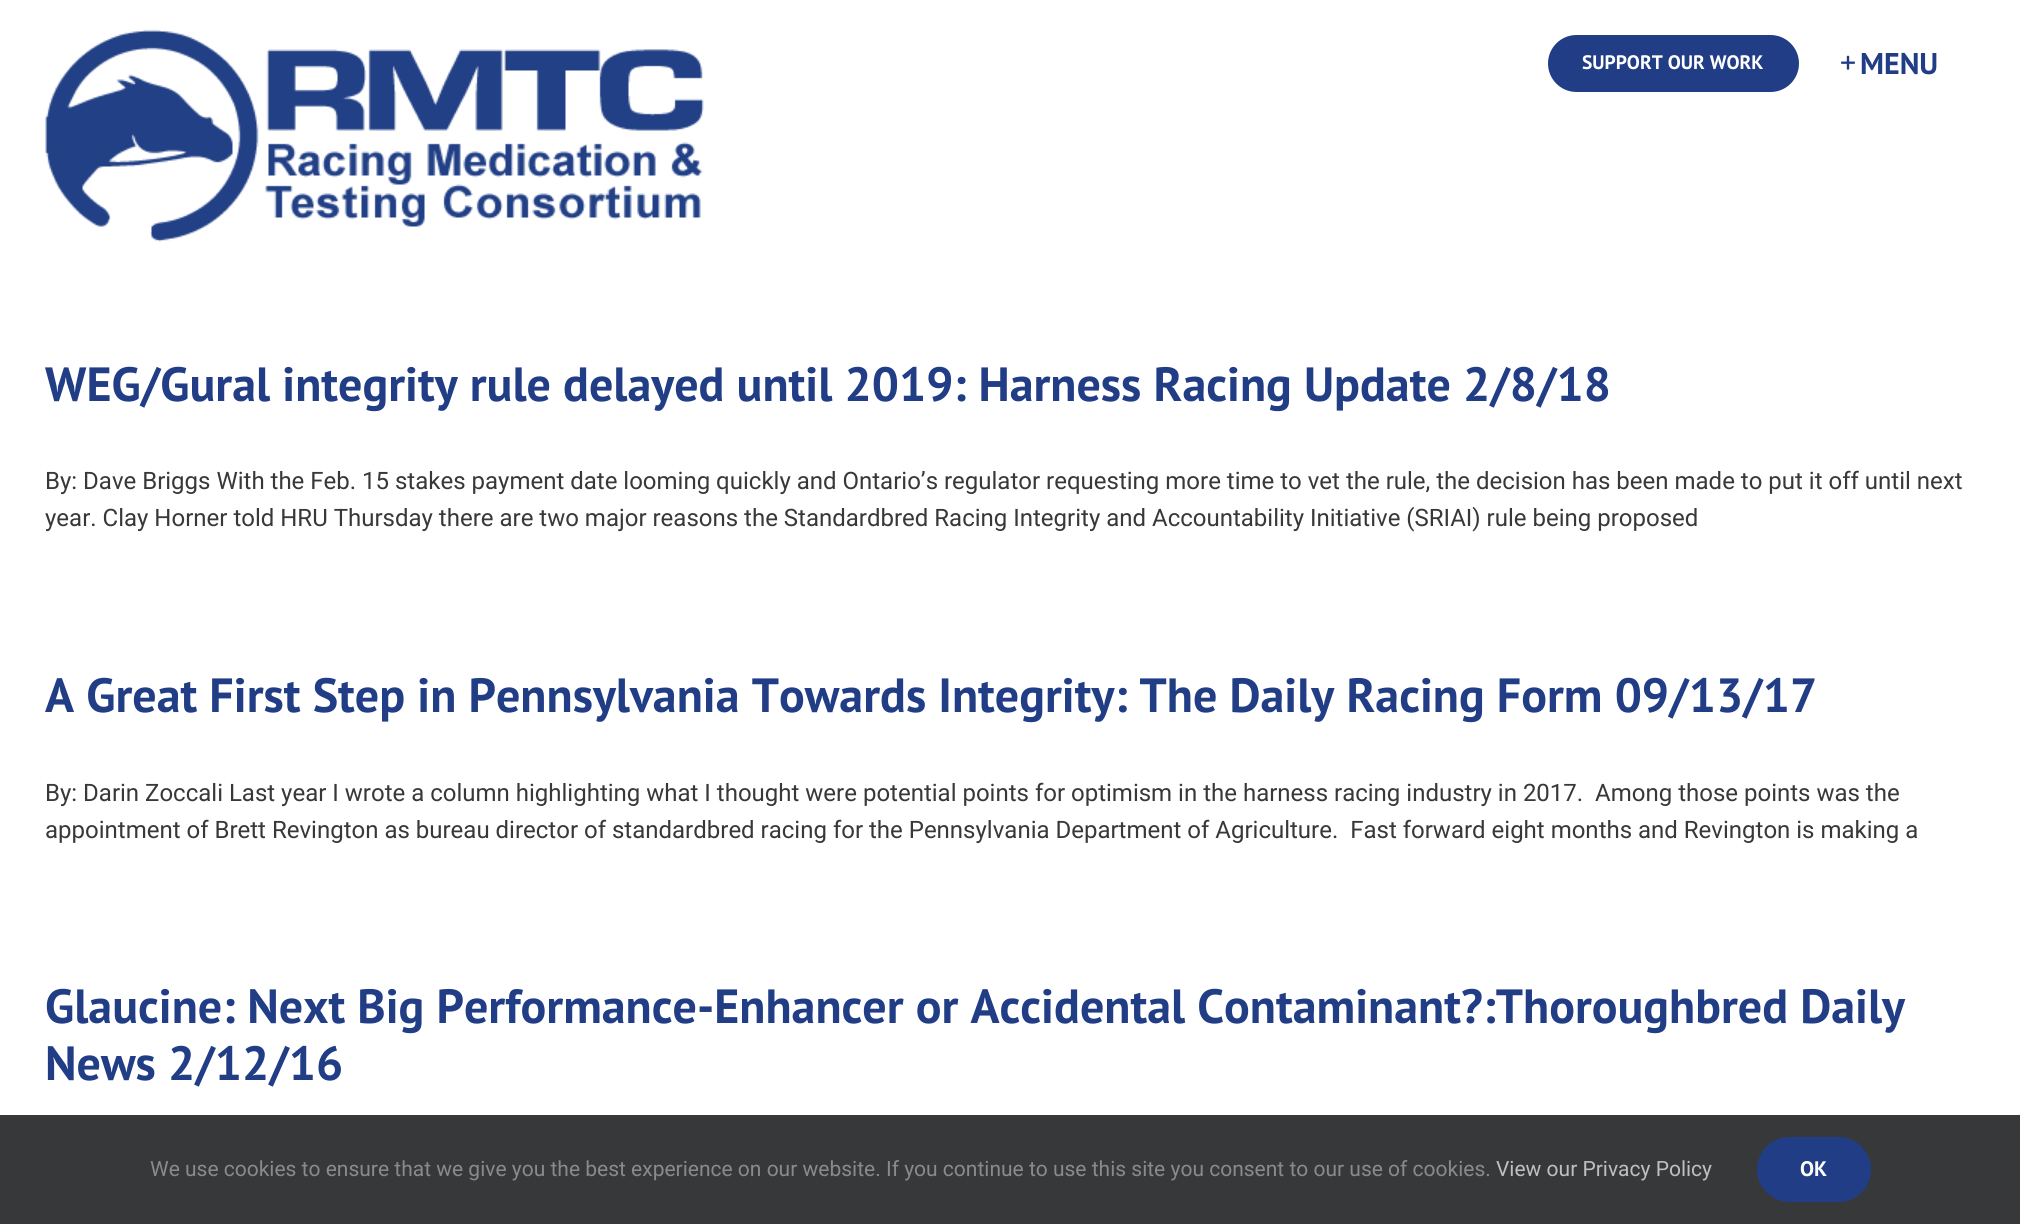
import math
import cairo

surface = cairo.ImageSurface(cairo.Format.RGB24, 2020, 1224)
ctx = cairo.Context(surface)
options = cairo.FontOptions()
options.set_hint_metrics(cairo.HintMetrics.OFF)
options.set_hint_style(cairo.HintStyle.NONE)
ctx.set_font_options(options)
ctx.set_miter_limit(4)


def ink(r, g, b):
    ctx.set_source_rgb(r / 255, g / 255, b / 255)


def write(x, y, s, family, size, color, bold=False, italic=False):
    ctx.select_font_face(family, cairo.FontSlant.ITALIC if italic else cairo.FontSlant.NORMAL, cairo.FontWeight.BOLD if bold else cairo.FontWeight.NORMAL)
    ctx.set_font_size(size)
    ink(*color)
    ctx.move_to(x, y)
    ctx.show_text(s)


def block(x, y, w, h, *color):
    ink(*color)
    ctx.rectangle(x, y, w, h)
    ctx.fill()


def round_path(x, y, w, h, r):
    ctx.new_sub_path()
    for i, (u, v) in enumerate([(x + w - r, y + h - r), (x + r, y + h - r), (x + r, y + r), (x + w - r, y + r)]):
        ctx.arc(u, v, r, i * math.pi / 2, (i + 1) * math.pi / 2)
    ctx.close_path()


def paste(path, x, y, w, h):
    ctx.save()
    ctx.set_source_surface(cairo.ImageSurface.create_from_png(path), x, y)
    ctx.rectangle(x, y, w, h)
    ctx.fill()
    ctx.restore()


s1 = dict(family="PT Sans", size=19.5, color=(255, 255, 255), bold=True)
s2 = dict(family="PT Sans", size=30, color=(33, 61, 134), bold=True)
s3 = dict(family="PT Sans", size=48, color=(33, 61, 134), bold=True)
s4 = dict(family="Roboto", size=24, color=(56, 56, 56))
s5 = dict(family="Roboto", size=21, color=(140, 137, 137))
s6 = dict(family="Roboto", size=21, color=(191, 191, 191))
s7 = dict(family="PT Sans", size=21, color=(255, 255, 255), bold=True)

ink(255, 255, 255)
ctx.paint()
paste("pic1.png", 45, 29, 659, 213)
ink(33, 61, 134)
round_path(1548, 35, 251, 57, 28.5)
ctx.fill()
write(1582, 69, "SUPPORT OUR WORK", **s1)
paste("pic2.png", 1841, 55, 14, 15)
write(1860, 74, "MENU", **s2)
write(45, 401, "WEG/Gural integrity rule delayed until 2019: Harness Racing Update 2/8/18", **s3)
write(45, 489, "By: Dave Briggs With the Feb. 15 stakes payment date looming quickly and Ontario’s regulator requesting more time to vet the rule, the decision has been made to put it off until next", **s4)
write(45, 526, "year. Clay Horner told HRU Thursday there are two major reasons the Standardbred Racing Integrity and Accountability Initiative (SRIAI) rule being proposed", **s4)
write(45, 712, "A Great First Step in Pennsylvania Towards Integrity: The Daily Racing Form 09/13/17", **s3)
write(45, 801, "By: Darin Zoccali Last year I wrote a column highlighting what I thought were potential points for optimism in the harness racing industry in 2017.  Among those points was the", **s4)
write(45, 838, "appointment of Brett Revington as bureau director of standardbred racing for the Pennsylvania Department of Agriculture.  Fast forward eight months and Revington is making a", **s4)
write(45, 1023, "Glaucine: Next Big Performance-Enhancer or Accidental Contaminant?:Thoroughbred Daily", **s3)
write(45, 1080, "News 2/12/16", **s3)
block(0, 1115, 2020, 109, 54, 56, 57)
write(150, 1176, "We use cookies to ensure that we give you the best experience on our website. If you continue to use this site you consent to our use of cookies.", **s5)
write(1496, 1176, "View our Privacy Policy", **s6)
ink(33, 61, 134)
round_path(1757, 1137, 114, 65, 32.5)
ctx.fill()
write(1800, 1176, "OK", **s7)
surface.write_to_png("screenshot.png")
